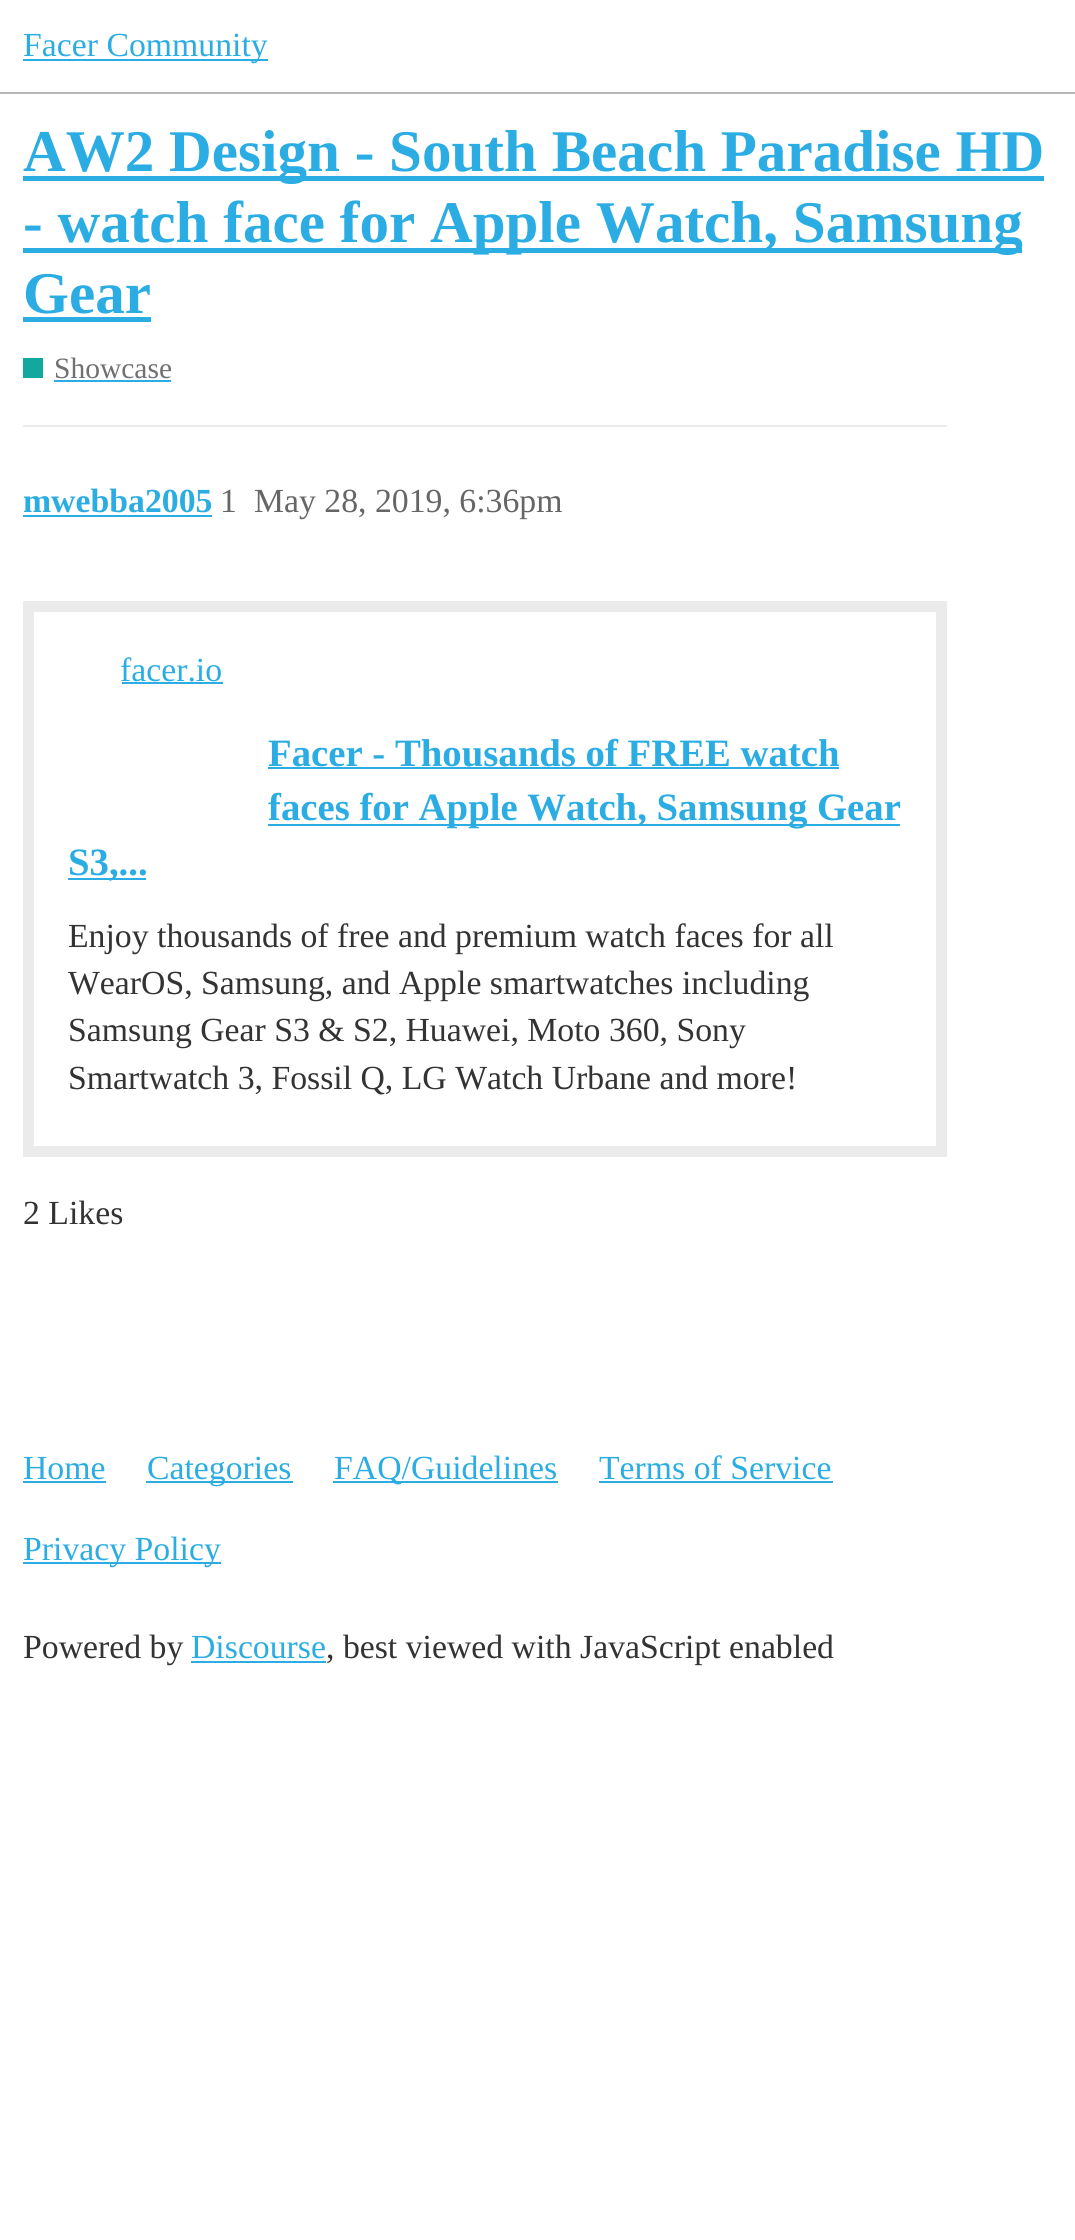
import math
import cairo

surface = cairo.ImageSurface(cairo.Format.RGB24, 1075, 2240)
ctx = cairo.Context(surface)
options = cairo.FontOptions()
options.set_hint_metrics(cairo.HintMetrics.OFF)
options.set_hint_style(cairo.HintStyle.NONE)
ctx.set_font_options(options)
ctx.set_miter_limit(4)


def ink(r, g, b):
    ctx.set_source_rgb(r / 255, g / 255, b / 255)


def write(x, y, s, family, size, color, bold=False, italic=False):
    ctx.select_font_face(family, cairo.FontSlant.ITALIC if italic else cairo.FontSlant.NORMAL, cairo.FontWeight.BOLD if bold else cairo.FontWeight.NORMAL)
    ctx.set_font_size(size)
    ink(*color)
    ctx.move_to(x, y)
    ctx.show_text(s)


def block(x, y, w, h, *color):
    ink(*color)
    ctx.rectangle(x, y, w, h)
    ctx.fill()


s1 = dict(family="Liberation Serif", size=33.75, color=(43, 173, 227))
s2 = dict(family="Liberation Serif", size=59.1, color=(43, 173, 227), bold=True)
s3 = dict(family="Liberation Serif", size=29.5, color=(112, 112, 112))
s4 = dict(family="Liberation Serif", size=33.75, color=(43, 173, 227), bold=True)
s5 = dict(family="Liberation Serif", size=33.75, color=(102, 102, 102))
s6 = dict(family="Liberation Serif", size=38.75, color=(43, 173, 227), bold=True)
s7 = dict(family="Liberation Serif", size=33.75, color=(51, 51, 51))

ink(255, 255, 255)
ctx.paint()
block(0, 92, 1075, 2, 182, 182, 182)
block(23, 59, 245, 2, 43, 173, 227)
write(23, 56, "Facer Community", **s1)
block(23, 176, 1021, 5, 43, 173, 227)
write(23, 171, "AW2 Design - South Beach Paradise HD", **s2)
block(23, 248, 999, 5, 43, 173, 227)
write(23, 242, "- watch face for Apple Watch, Samsung", **s2)
write(23, 313, "Gear", **s2)
block(23, 317, 128, 5, 43, 173, 227)
block(23, 358, 20, 20, 18, 168, 157)
write(54, 378, "Showcase", **s3)
block(54, 380, 117, 2, 43, 173, 227)
block(23, 425, 924, 2, 235, 235, 235)
write(23, 512, "mwebba2005", **s4)
block(23, 515, 189, 2, 43, 173, 227)
write(220, 512, "1", **s5)
write(254, 512, "May 28, 2019, 6:36pm", **s5)
ctx.rectangle(28.5, 606.5, 913, 545)
ink(235, 235, 235)
ctx.set_line_width(11)
ctx.stroke()
write(120, 681, "facer.io", **s1)
block(122, 682, 101, 2, 43, 173, 227)
write(268, 766, "Facer - Thousands of FREE watch", **s6)
block(268, 767, 571, 2, 43, 173, 227)
block(268, 824, 632, 2, 43, 173, 227)
write(268, 820, "faces for Apple Watch, Samsung Gear", **s6)
block(68, 878, 78, 2, 43, 173, 227)
write(68, 875, "S3,...", **s6)
write(68, 947, "Enjoy thousands of free and premium watch faces for all", **s7)
write(68, 994, "WearOS, Samsung, and Apple smartwatches including", **s7)
write(68, 1041, "Samsung Gear S3 & S2, Huawei, Moto 360, Sony", **s7)
write(68, 1089, "Smartwatch 3, Fossil Q, LG Watch Urbane and more!", **s7)
write(23, 1224, "2 Likes", **s7)
write(23, 1479, "Home", **s1)
block(23, 1481, 83, 2, 43, 173, 227)
block(146, 1481, 147, 2, 43, 173, 227)
write(147, 1479, "Categories", **s1)
block(333, 1481, 225, 2, 43, 173, 227)
write(334, 1479, "FAQ/Guidelines", **s1)
write(599, 1479, "Terms of Service", **s1)
block(599, 1481, 234, 2, 43, 173, 227)
block(23, 1562, 198, 2, 43, 173, 227)
write(23, 1560, "Privacy Policy", **s1)
write(23, 1658, "Powered by", **s7)
write(191, 1658, "Discourse", **s1)
block(191, 1661, 135, 2, 43, 173, 227)
write(326, 1658, ", best viewed with JavaScript enabled", **s7)
surface.write_to_png("screenshot.png")
